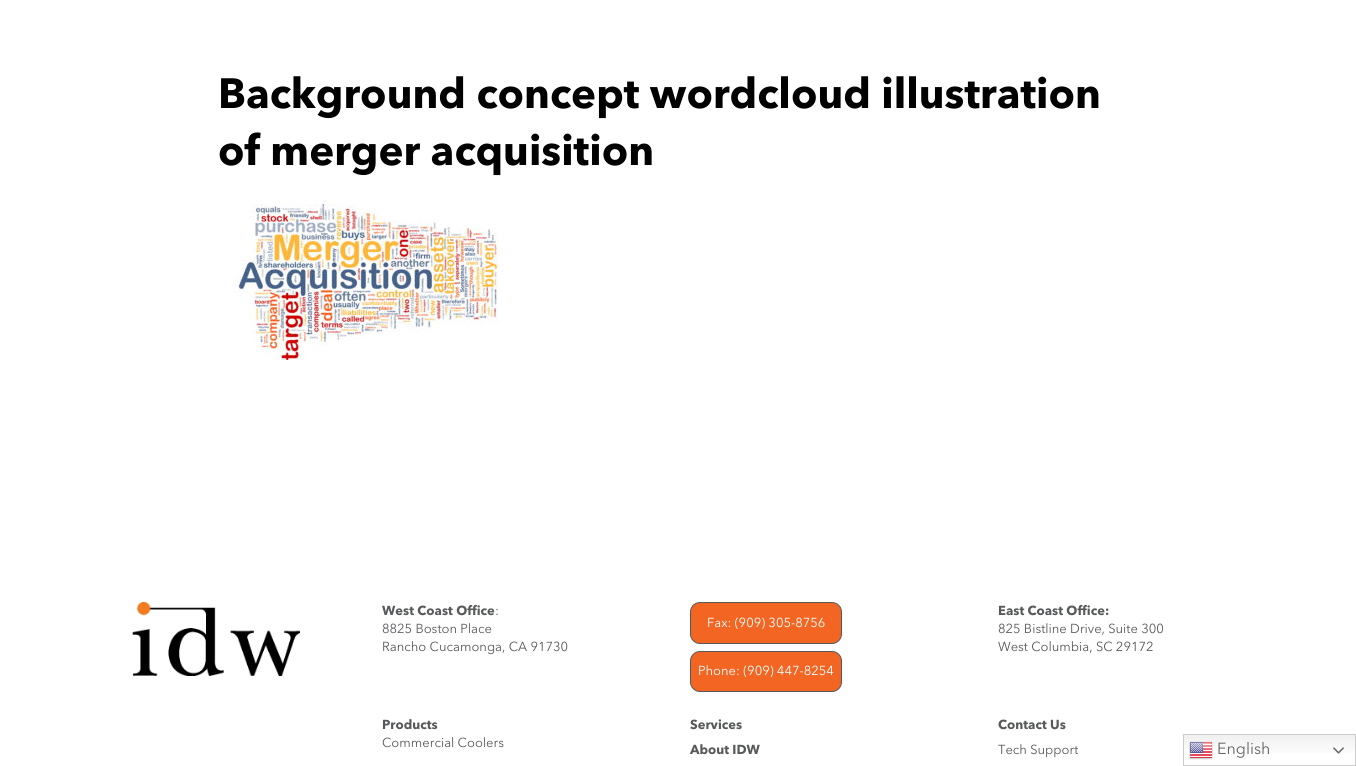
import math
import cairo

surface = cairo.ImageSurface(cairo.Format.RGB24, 1356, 766)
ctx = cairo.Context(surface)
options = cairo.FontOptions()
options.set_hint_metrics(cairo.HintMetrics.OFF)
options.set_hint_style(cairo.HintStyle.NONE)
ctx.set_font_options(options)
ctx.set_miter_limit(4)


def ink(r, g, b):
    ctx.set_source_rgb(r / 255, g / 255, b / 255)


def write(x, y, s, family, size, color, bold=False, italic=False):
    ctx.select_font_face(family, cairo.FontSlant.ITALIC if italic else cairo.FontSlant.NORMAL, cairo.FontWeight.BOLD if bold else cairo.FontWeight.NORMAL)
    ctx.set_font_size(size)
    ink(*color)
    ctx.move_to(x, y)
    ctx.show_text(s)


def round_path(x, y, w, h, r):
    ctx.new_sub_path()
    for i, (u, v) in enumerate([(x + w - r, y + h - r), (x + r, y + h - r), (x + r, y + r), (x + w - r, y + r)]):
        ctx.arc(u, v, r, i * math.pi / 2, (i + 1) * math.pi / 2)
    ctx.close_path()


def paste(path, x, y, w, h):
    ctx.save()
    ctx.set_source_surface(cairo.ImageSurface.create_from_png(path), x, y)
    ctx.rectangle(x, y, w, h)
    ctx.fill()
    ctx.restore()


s1 = dict(family="Avenir Next", size=42, color=(0, 0, 0), bold=True)
s2 = dict(family="Avenir Next", size=13, color=(88, 89, 91), bold=True)
s3 = dict(family="Avenir Next", size=13, color=(88, 89, 91))
s4 = dict(family="Avenir Next", size=13, color=(255, 255, 255))
s5 = dict(family="Avenir Next", size=16, color=(102, 102, 102))

ink(255, 255, 255)
ctx.paint()
write(218, 108, "Background concept wordcloud illustration", **s1)
write(218, 165, "of merger acquisition", **s1)
paste("pic1.png", 234, 204, 264, 156)
paste("pic2.png", 132, 602, 168, 74)
write(382, 615, "West Coast Office", **s2)
write(495, 615, ":", **s3)
write(382, 633, "8825 Boston Place", **s3)
write(382, 651, "Rancho Cucamonga, CA 91730", **s3)
ink(242, 101, 34)
round_path(690.5, 602.5, 151, 41, 9.5)
ctx.fill_preserve()
ink(88, 89, 91)
ctx.set_line_width(1)
ctx.stroke()
write(707, 627, "Fax: (909) 305-8756", **s4)
ink(242, 101, 34)
round_path(690.5, 651.5, 151, 40, 9.5)
ctx.fill_preserve()
ink(88, 89, 91)
ctx.stroke()
write(698, 675, "Phone: (909) 447-8254", **s4)
write(998, 615, "East Coast Office:", **s2)
write(998, 633, "825 Bistline Drive, Suite 300", **s3)
write(998, 651, "West Columbia, SC 29172", **s3)
write(382, 729, "Products", **s2)
write(382, 747, "Commercial Coolers", **s3)
write(690, 729, "Services", **s2)
write(690, 754, "About IDW", **s2)
write(998, 729, "Contact Us", **s2)
write(998, 754, "Tech Support", **s3)
gradient = cairo.LinearGradient(1270, 734, 1270, 766)
gradient.add_color_stop_rgba(0, 0.937, 0.937, 0.937, 1)
gradient.add_color_stop_rgba(0.7, 1, 1, 1, 1)
ctx.set_source(gradient)
ctx.rectangle(1184, 735, 171, 18)
ctx.fill()
ctx.rectangle(1183.5, 734.5, 172, 31)
ink(204, 204, 204)
ctx.stroke()
paste("pic3.png", 1189, 741, 24, 19)
write(1217, 754, "English", **s5)
paste("pic4.png", 1333, 747, 11, 7)
surface.write_to_png("screenshot.png")
